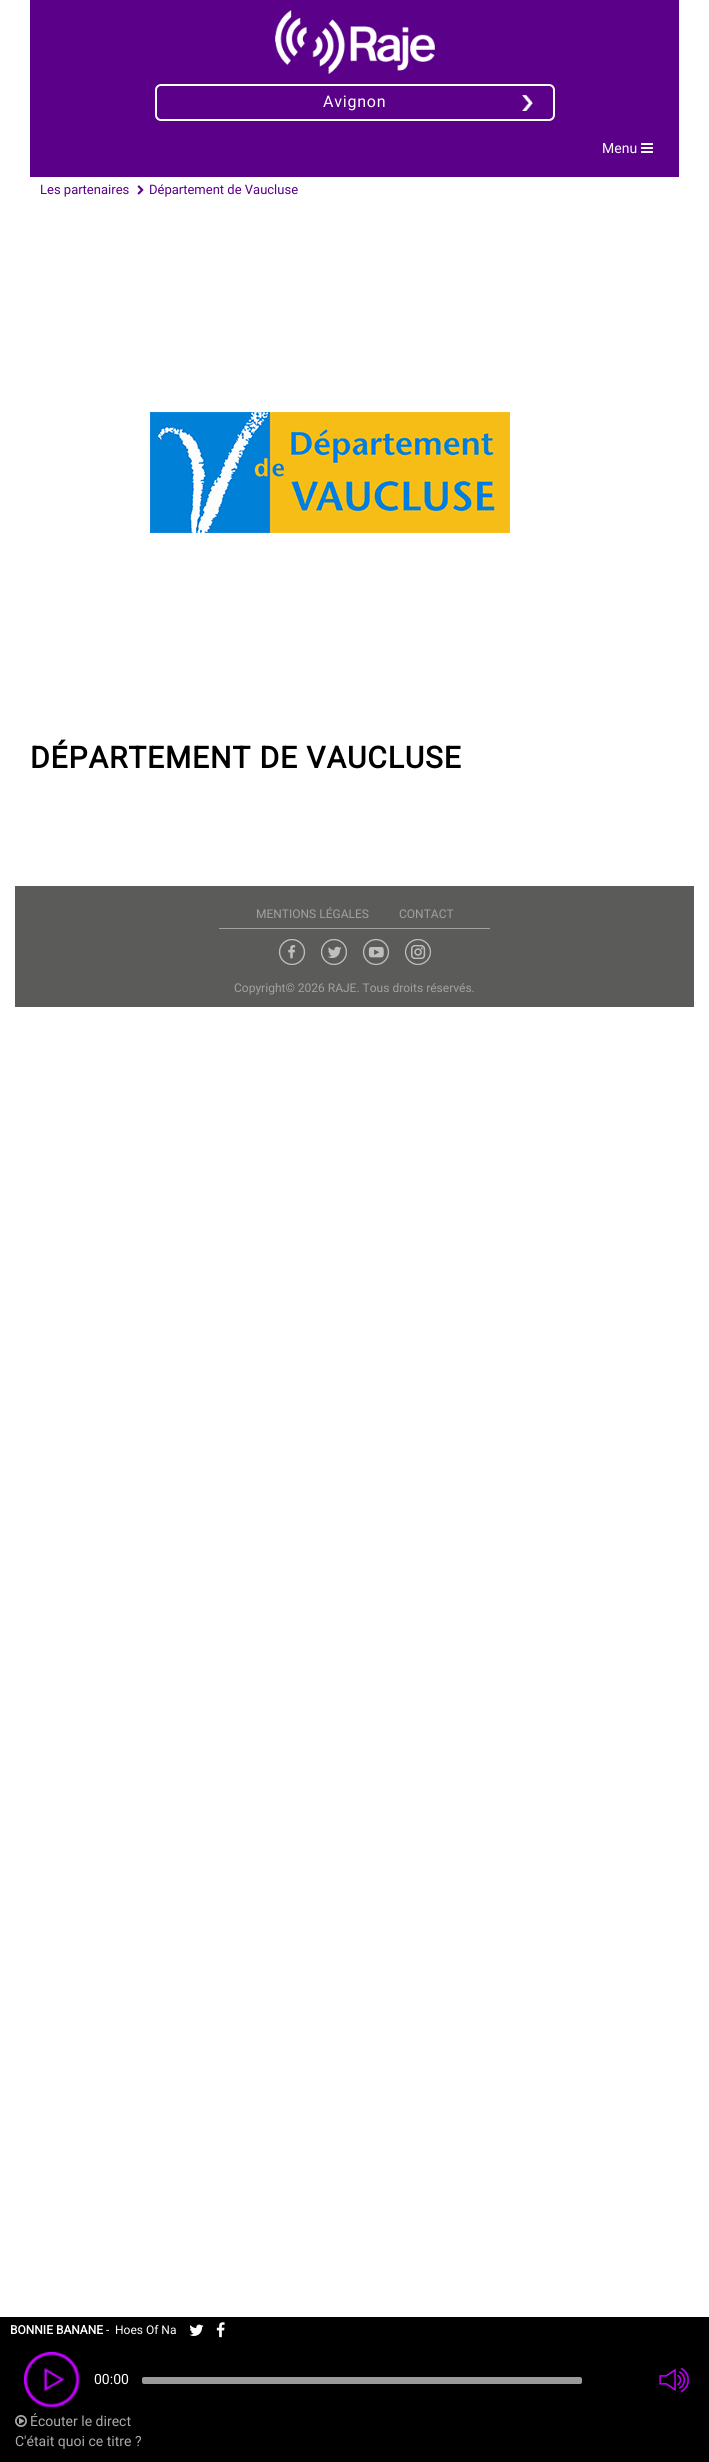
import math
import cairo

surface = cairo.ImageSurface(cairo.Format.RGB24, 709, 2462)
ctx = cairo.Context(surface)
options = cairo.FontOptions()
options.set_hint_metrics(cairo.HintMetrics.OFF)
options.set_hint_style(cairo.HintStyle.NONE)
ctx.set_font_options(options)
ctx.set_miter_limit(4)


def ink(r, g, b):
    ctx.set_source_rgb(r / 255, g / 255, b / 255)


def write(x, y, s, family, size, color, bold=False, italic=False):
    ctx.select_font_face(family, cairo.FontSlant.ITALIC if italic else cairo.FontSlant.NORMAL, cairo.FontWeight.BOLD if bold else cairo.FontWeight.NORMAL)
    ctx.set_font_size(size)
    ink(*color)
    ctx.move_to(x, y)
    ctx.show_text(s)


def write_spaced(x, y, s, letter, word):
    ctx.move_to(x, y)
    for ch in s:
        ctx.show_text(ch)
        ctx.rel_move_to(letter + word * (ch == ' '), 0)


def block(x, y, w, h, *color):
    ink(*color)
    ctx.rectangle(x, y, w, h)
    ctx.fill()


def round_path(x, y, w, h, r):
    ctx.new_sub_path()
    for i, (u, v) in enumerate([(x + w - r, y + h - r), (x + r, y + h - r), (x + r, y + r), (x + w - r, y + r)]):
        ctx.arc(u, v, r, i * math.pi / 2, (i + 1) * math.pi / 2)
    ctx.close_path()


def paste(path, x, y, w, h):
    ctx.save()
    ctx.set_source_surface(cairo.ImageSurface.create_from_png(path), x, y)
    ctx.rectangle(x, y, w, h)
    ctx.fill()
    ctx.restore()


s1 = dict(family="Heebo", size=14, color=(255, 255, 255))
s2 = dict(family="Heebo", size=13, color=(91, 0, 137))
s3 = dict(family="Heebo", size=12, color=(161, 161, 161))
s4 = dict(family="Heebo", size=12, color=(255, 255, 255), bold=True)
s5 = dict(family="Heebo", size=12, color=(255, 255, 255))
s6 = dict(family="Heebo", size=14, color=(170, 170, 170))

ink(255, 255, 255)
ctx.paint()
block(30, 0, 649, 177, 91, 0, 137)
paste("pic1.png", 275, 10, 160, 64)
round_path(156, 85, 398, 35, 5)
ink(255, 255, 255)
ctx.stroke()
ctx.select_font_face("Heebo")
ctx.set_font_size(16)
write_spaced(323, 107, "Avignon", 0.75, 0)
paste("pic2.png", 522, 95, 11, 16)
write(602, 153, "Menu", **s1)
paste("pic3.png", 641, 143, 12, 10)
write(40, 194, "Les partenaires", **s2)
paste("pic4.png", 137, 185, 7, 10)
write(149, 194, "Département de Vaucluse", **s2)
paste("pic5.png", 150, 412, 360, 121)
ctx.select_font_face("Heebo", cairo.FontSlant.NORMAL, cairo.FontWeight.BOLD)
ctx.set_font_size(30)
ink(0, 0, 0)
write_spaced(30, 768, "DÉPARTEMENT DE VAUCLUSE", 0.9, 0)
block(15, 886, 679, 121, 91, 91, 90)
write(256, 918, "MENTIONS LÉGALES", **s3)
write(399, 918, "CONTACT", **s3)
block(219, 928, 271, 1, 161, 161, 161)
paste("pic6.png", 279, 939, 26, 26)
paste("pic7.png", 321, 939, 26, 26)
paste("pic8.png", 363, 939, 26, 26)
paste("pic9.png", 405, 939, 26, 26)
write(234, 992, "Copyright© 2026 RAJE. Tous droits réservés.", **s3)
block(0, 2317, 709, 145, 0, 0, 0)
write(10, 2334, "BONNIE BANANE", **s4)
write(106, 2334, "-", **s5)
write(115, 2334, "Hoes Of Na", **s5)
paste("pic10.png", 189, 2324, 15, 12)
paste("pic11.png", 216, 2322, 9, 16)
paste("pic12.png", 24, 2352, 56, 55)
write(94, 2384, "00:00", **s1)
ink(153, 153, 153)
round_path(142, 2377, 440, 7, 2)
ctx.fill()
paste("pic13.png", 658, 2368, 31, 24)
paste("pic14.png", 15, 2415, 12, 12)
write(30, 2426, "Écouter le direct", **s6)
write(15, 2446, "C'était quoi ce titre ?", **s6)
surface.write_to_png("screenshot.png")
